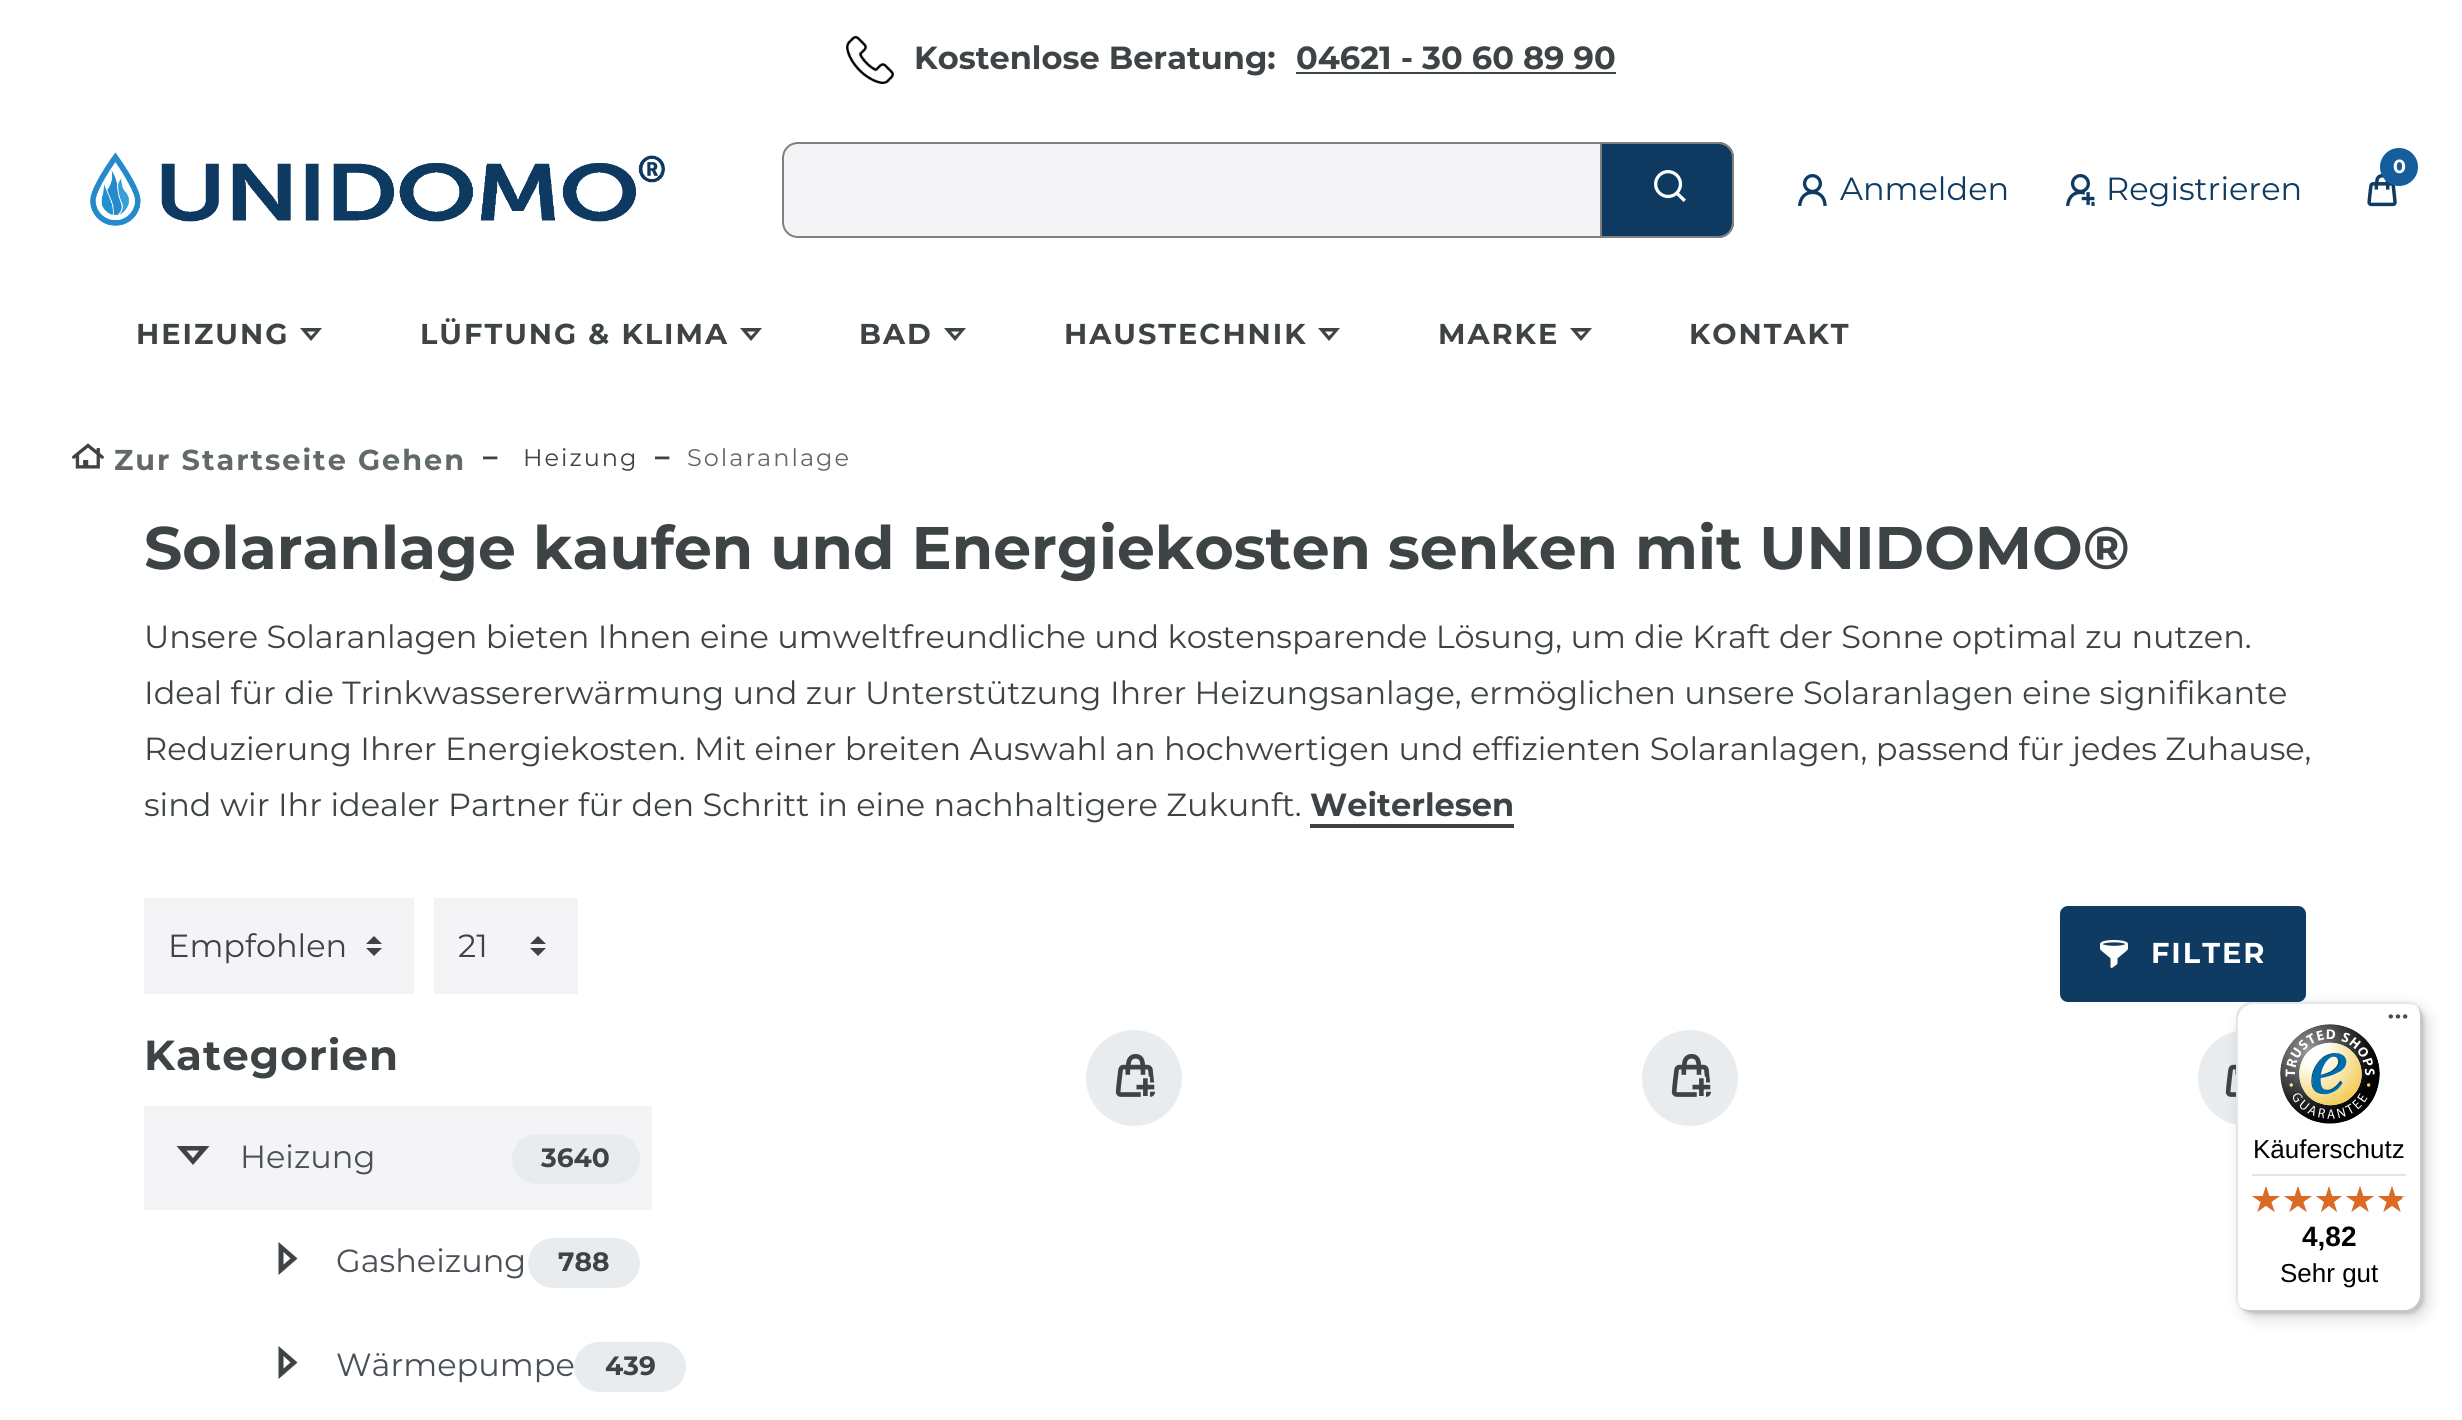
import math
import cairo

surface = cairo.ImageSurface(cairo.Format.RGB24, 2462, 1420)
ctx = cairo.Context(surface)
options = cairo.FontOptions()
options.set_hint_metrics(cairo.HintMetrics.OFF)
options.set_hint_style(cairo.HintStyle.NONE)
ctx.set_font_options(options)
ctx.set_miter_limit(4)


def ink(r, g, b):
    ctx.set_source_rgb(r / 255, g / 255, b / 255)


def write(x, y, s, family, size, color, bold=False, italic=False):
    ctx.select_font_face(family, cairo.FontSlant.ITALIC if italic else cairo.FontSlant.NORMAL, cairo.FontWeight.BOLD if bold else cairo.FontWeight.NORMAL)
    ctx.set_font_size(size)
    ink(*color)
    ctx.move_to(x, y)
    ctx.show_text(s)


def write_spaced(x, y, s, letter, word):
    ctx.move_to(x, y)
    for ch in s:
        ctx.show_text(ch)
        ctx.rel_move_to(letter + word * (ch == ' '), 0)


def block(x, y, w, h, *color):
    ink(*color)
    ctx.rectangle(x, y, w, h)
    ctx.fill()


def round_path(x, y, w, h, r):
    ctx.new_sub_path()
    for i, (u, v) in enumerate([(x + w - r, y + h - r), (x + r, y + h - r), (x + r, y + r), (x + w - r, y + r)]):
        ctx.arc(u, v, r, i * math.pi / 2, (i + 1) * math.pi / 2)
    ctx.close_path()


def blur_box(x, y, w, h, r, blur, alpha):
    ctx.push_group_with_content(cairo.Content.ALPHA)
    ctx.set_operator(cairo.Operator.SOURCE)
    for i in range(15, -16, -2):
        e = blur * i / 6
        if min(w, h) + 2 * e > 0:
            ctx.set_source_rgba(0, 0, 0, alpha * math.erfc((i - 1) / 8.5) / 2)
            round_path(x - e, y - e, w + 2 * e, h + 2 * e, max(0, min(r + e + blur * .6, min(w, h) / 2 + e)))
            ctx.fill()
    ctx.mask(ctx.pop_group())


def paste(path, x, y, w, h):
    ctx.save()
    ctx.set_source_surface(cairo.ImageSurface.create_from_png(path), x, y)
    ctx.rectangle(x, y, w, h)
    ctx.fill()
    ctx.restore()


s1 = dict(family="Montserrat", size=32, color=(62, 67, 70), bold=True)
s2 = dict(family="Montserrat", size=19, color=(255, 255, 255), bold=True)
s3 = dict(family="Montserrat", size=32, color=(15, 59, 98))
s4 = dict(family="Montserrat", size=60, color=(62, 67, 70), bold=True)
s5 = dict(family="Montserrat", size=32, color=(62, 67, 70))
s6 = dict(family="Montserrat", size=32, color=(73, 80, 87))
s7 = dict(family="Montserrat", size=26.5, color=(62, 67, 70), bold=True)
s8 = dict(family="Liberation Sans", size=26, color=(0, 0, 0))
s9 = dict(family="Liberation Sans", size=28, color=(0, 0, 0), bold=True)

ink(255, 255, 255)
ctx.paint()
paste("pic1.png", 846, 36, 48, 48)
write(914, 69, "Kostenlose Beratung:", **s1)
write(1296, 69, "04621 - 30 60 89 90", **s1)
block(1296, 72, 320, 2, 62, 67, 70)
paste("pic2.png", 89, 152, 576, 74)
ink(244, 244, 246)
ctx.new_path()
ctx.move_to(798, 143)
ctx.line_to(1601, 143)
ctx.line_to(1601, 237)
ctx.line_to(798, 237)
ctx.curve_to(789.5, 237, 783, 230.5, 783, 222)
ctx.line_to(783, 158)
ctx.curve_to(783, 149.5, 789.5, 143, 798, 143)
ctx.close_path()
ctx.fill_preserve()
ink(128, 128, 128)
ctx.stroke()
ink(14, 58, 97)
ctx.new_path()
ctx.move_to(1602, 142)
ctx.line_to(1718, 142)
ctx.curve_to(1727, 142, 1734, 149, 1734, 158)
ctx.line_to(1734, 222)
ctx.curve_to(1734, 231, 1727, 238, 1718, 238)
ctx.line_to(1602, 238)
ctx.close_path()
ctx.fill()
ink(128, 128, 128)
ctx.set_fill_rule(cairo.FillRule.EVEN_ODD)
ctx.new_path()
ctx.move_to(1602, 142)
ctx.line_to(1718, 142)
ctx.curve_to(1727, 142, 1734, 149, 1734, 158)
ctx.line_to(1734, 222)
ctx.curve_to(1734, 231, 1727, 238, 1718, 238)
ctx.line_to(1602, 238)
ctx.close_path()
ctx.move_to(1602, 144)
ctx.line_to(1718, 144)
ctx.curve_to(1726, 144, 1732, 150, 1732, 158)
ctx.line_to(1732, 222)
ctx.curve_to(1732, 230, 1726, 236, 1718, 236)
ctx.line_to(1602, 236)
ctx.close_path()
ctx.fill()
paste("pic3.png", 1654, 170, 32, 32)
paste("pic4.png", 2367, 174, 30, 33)
ink(22, 93, 156)
ctx.arc(2399, 167, 19, 0, 2 * math.pi)
ctx.fill()
write(2393, 173, "0", **s2)
paste("pic5.png", 1798, 174, 29, 32)
write(1840, 200, "Anmelden", **s3)
paste("pic6.png", 2066, 174, 29, 32)
write(2106, 200, "Registrieren", **s3)
ctx.select_font_face("Montserrat", cairo.FontSlant.NORMAL, cairo.FontWeight.BOLD)
ctx.set_font_size(28.75)
ink(62, 67, 70)
write_spaced(136, 344, "HEIZUNG", 2, 0)
ctx.set_fill_rule(cairo.FillRule.WINDING)
ctx.new_path()
ctx.move_to(311, 341)
ctx.line_to(300, 328)
ctx.line_to(322, 328)
ctx.close_path()
ctx.move_to(307, 331.5)
ctx.line_to(311, 336)
ctx.line_to(315.5, 331.5)
ctx.close_path()
ctx.fill()
write_spaced(420, 344, "LÜFTUNG & KLIMA", 2, 0)
ctx.new_path()
ctx.move_to(751, 341)
ctx.line_to(740, 328)
ctx.line_to(762, 328)
ctx.close_path()
ctx.move_to(747, 331.5)
ctx.line_to(751, 336)
ctx.line_to(755.5, 331.5)
ctx.close_path()
ctx.fill()
write_spaced(859, 344, "BAD", 2, 0)
ctx.new_path()
ctx.move_to(955, 341)
ctx.line_to(944, 328)
ctx.line_to(966, 328)
ctx.close_path()
ctx.move_to(951, 331.5)
ctx.line_to(955, 336)
ctx.line_to(959.5, 331.5)
ctx.close_path()
ctx.fill()
write_spaced(1064, 344, "HAUSTECHNIK", 2, 0)
ctx.new_path()
ctx.move_to(1329, 341)
ctx.line_to(1318, 328)
ctx.line_to(1340, 328)
ctx.close_path()
ctx.move_to(1325, 331.5)
ctx.line_to(1329, 336)
ctx.line_to(1333.5, 331.5)
ctx.close_path()
ctx.fill()
write_spaced(1438, 344, "MARKE", 2, 0)
ctx.new_path()
ctx.move_to(1581, 341)
ctx.line_to(1570, 328)
ctx.line_to(1592, 328)
ctx.close_path()
ctx.move_to(1577, 331.5)
ctx.line_to(1581, 336)
ctx.line_to(1585.5, 331.5)
ctx.close_path()
ctx.fill()
write_spaced(1689, 344, "KONTAKT", 2, 0)
paste("pic7.png", 72, 443, 32, 26)
ink(97, 105, 106)
write_spaced(114, 470, "Zur Startseite Gehen", 2, 0)
ink(62, 67, 70)
write_spaced(483, 466, "–", 2, 0)
ctx.select_font_face("Montserrat")
ctx.set_font_size(24)
write_spaced(523, 466, "Heizung", 2, 0)
ctx.select_font_face("Montserrat", cairo.FontSlant.NORMAL, cairo.FontWeight.BOLD)
ctx.set_font_size(28.75)
write_spaced(655, 466, "–", 2, 0)
ctx.select_font_face("Montserrat")
ctx.set_font_size(24)
ink(97, 105, 106)
write_spaced(687, 466, "Solaranlage", 2, 0)
write(144, 569, "Solaranlage kaufen und Energiekosten senken mit UNIDOMO®", **s4)
write(144, 648, "Unsere Solaranlagen bieten Ihnen eine umweltfreundliche und kostensparende Lösung, um die Kraft der Sonne optimal zu nutzen.", **s5)
write(144, 704, "Ideal für die Trinkwassererwärmung und zur Unterstützung Ihrer Heizungsanlage, ermöglichen unsere Solaranlagen eine signifikante", **s5)
write(144, 760, "Reduzierung Ihrer Energiekosten. Mit einer breiten Auswahl an hochwertigen und effizienten Solaranlagen, passend für jedes Zuhause,", **s5)
write(144, 816, "sind wir Ihr idealer Partner für den Schritt in eine nachhaltigere Zukunft.", **s5)
write(1310, 816, "Weiterlesen", **s1)
block(1310, 824, 204, 4, 62, 67, 70)
block(144, 898, 270, 96, 244, 244, 246)
ink(62, 67, 70)
ctx.new_path()
ctx.move_to(374, 936)
ctx.line_to(366, 944)
ctx.line_to(382, 944)
ctx.close_path()
ctx.move_to(374, 956)
ctx.line_to(366, 948)
ctx.line_to(382, 948)
ctx.close_path()
ctx.fill()
write(168, 957, "Empfohlen", **s5)
block(434, 898, 144, 96, 244, 244, 246)
ink(62, 67, 70)
ctx.new_path()
ctx.move_to(538, 936)
ctx.line_to(530, 944)
ctx.line_to(546, 944)
ctx.close_path()
ctx.move_to(538, 956)
ctx.line_to(530, 948)
ctx.line_to(546, 948)
ctx.close_path()
ctx.fill()
write(458, 957, "21", **s5)
ink(15, 59, 98)
round_path(2062, 908, 242, 92, 6)
ctx.fill_preserve()
ctx.set_line_width(4)
ctx.stroke()
paste("pic8.png", 2100, 940, 28, 28)
ctx.select_font_face("Montserrat", cairo.FontSlant.NORMAL, cairo.FontWeight.BOLD)
ctx.set_font_size(28.75)
ink(255, 255, 255)
write_spaced(2151, 963, "FILTER", 2, 0)
ctx.set_font_size(42)
ink(62, 67, 70)
write_spaced(144, 1070, "Kategorien", 1, 0)
block(144, 1106, 508, 104, 244, 244, 246)
ink(62, 67, 70)
ctx.new_path()
ctx.move_to(193, 1165)
ctx.line_to(176.5, 1146)
ctx.line_to(209.5, 1146)
ctx.close_path()
ctx.move_to(186.5, 1150.5)
ctx.line_to(193, 1158)
ctx.line_to(199, 1150.5)
ctx.close_path()
ctx.fill()
write(240, 1168, "Heizung", **s6)
ink(233, 236, 239)
round_path(512, 1134, 128, 50, 25)
ctx.fill()
write(541, 1167, "3640", **s7)
ctx.new_path()
ctx.move_to(297.5, 1258.5)
ctx.line_to(278.5, 1275)
ctx.line_to(278.5, 1242)
ctx.close_path()
ctx.move_to(283.5, 1264.5)
ctx.line_to(290.5, 1258.5)
ctx.line_to(283.5, 1252)
ctx.close_path()
ctx.fill()
write(336, 1272, "Gasheizung", **s6)
ink(233, 236, 239)
round_path(528, 1238, 112, 50, 25)
ctx.fill()
write(558, 1271, "788", **s7)
ctx.new_path()
ctx.move_to(297.5, 1362.5)
ctx.line_to(278.5, 1379)
ctx.line_to(278.5, 1346)
ctx.close_path()
ctx.move_to(283.5, 1368.5)
ctx.line_to(290.5, 1362.5)
ctx.line_to(283.5, 1356)
ctx.close_path()
ctx.fill()
write(336, 1376, "Wärmepumpe", **s6)
ink(233, 236, 239)
round_path(574, 1342, 112, 50, 25)
ctx.fill()
write(605, 1375, "439", **s7)
ink(233, 236, 239)
ctx.new_path()
ctx.arc(1134, 1078, 48, 0, 2 * math.pi)
ctx.fill()
paste("pic9.png", 1115, 1054, 40, 43)
ctx.arc(1690, 1078, 48, 0, 2 * math.pi)
ctx.fill()
paste("pic9.png", 1671, 1054, 40, 43)
ctx.arc(2246, 1078, 48, 0, 2 * math.pi)
ctx.fill()
paste("pic10.png", 2225, 1064, 11, 33)
ink(0, 0, 0)
blur_box(2242, 1008, 186, 310, 16, 8, 0.15)
blur_box(2238, 1004, 186, 310, 16, 2, 0.15)
ink(255, 255, 255)
round_path(2236, 1002, 186, 310, 16)
ctx.fill()
ctx.set_source_rgba(0, 0, 0, 0.1)
ctx.new_path()
ctx.move_to(2254, 1004)
ctx.line_to(2408, 1004)
ctx.curve_to(2412, 1004, 2415, 1005, 2418, 1007)
ctx.curve_to(2415, 1004, 2411, 1002, 2406, 1002)
ctx.line_to(2252, 1002)
ctx.curve_to(2243, 1002, 2236, 1009, 2236, 1018)
ctx.line_to(2236, 1296)
ctx.curve_to(2236, 1301, 2238, 1305, 2241, 1308)
ctx.curve_to(2239, 1305, 2238, 1302, 2238, 1298)
ctx.line_to(2238, 1020)
ctx.curve_to(2238, 1011, 2245, 1004, 2254, 1004)
ctx.close_path()
ctx.fill()
ctx.set_source_rgba(0, 0, 0, 0.2)
ctx.new_path()
ctx.move_to(2240, 1307)
ctx.curve_to(2243, 1310, 2247, 1312, 2252, 1312)
ctx.line_to(2406, 1312)
ctx.curve_to(2415, 1312, 2422, 1305, 2422, 1296)
ctx.line_to(2422, 1018)
ctx.curve_to(2422, 1013, 2420, 1009, 2417, 1006)
ctx.curve_to(2419, 1009, 2420, 1012, 2420, 1016)
ctx.line_to(2420, 1294)
ctx.curve_to(2420, 1303, 2413, 1310, 2404, 1310)
ctx.line_to(2250, 1310)
ctx.curve_to(2246, 1310, 2243, 1309, 2240, 1307)
ctx.close_path()
ctx.fill()
ctx.set_source_rgba(0.196, 0.196, 0.196, 0.2)
ctx.new_path()
ctx.move_to(2241, 1307)
ctx.curve_to(2244, 1310, 2248, 1312, 2252, 1312)
ctx.line_to(2406, 1312)
ctx.curve_to(2415, 1312, 2422, 1305, 2422, 1296)
ctx.line_to(2422, 1018)
ctx.curve_to(2422, 1014, 2420, 1010, 2417, 1007)
ctx.curve_to(2420, 1010, 2421, 1013, 2421, 1017)
ctx.line_to(2421, 1295)
ctx.curve_to(2421, 1304, 2414, 1311, 2405, 1311)
ctx.line_to(2251, 1311)
ctx.curve_to(2247, 1311, 2244, 1310, 2241, 1307)
ctx.close_path()
ctx.fill()
ctx.set_source_rgba(1, 1, 1, 0.3)
ctx.new_path()
ctx.move_to(2241, 1307)
ctx.curve_to(2244, 1310, 2248, 1312, 2252, 1312)
ctx.line_to(2406, 1312)
ctx.curve_to(2415, 1312, 2422, 1305, 2422, 1296)
ctx.line_to(2422, 1018)
ctx.curve_to(2422, 1014, 2420, 1010, 2417, 1007)
ctx.curve_to(2420, 1010, 2421, 1013, 2421, 1017)
ctx.line_to(2421, 1295)
ctx.curve_to(2421, 1304, 2414, 1311, 2405, 1311)
ctx.line_to(2251, 1311)
ctx.curve_to(2247, 1311, 2244, 1310, 2241, 1307)
ctx.close_path()
ctx.fill()
paste("pic11.png", 2388, 1014, 20, 5)
paste("pic12.png", 2280, 1024, 100, 100)
write(2253, 1158, "Käuferschutz", **s8)
block(2252, 1174, 154, 2, 229, 229, 229)
paste("pic13.png", 2252, 1186, 28, 26)
paste("pic13.png", 2284, 1186, 28, 26)
paste("pic14.png", 2316, 1186, 26, 26)
paste("pic13.png", 2346, 1186, 28, 26)
paste("pic13.png", 2378, 1186, 28, 26)
paste("pic15.png", 2252, 1186, 28, 26)
paste("pic15.png", 2284, 1186, 28, 26)
paste("pic16.png", 2316, 1186, 26, 26)
paste("pic15.png", 2346, 1186, 28, 26)
paste("pic17.png", 2378, 1186, 24, 26)
write(2302, 1246, "4,82", **s9)
write(2280, 1282, "Sehr gut", **s8)
surface.write_to_png("screenshot.png")
